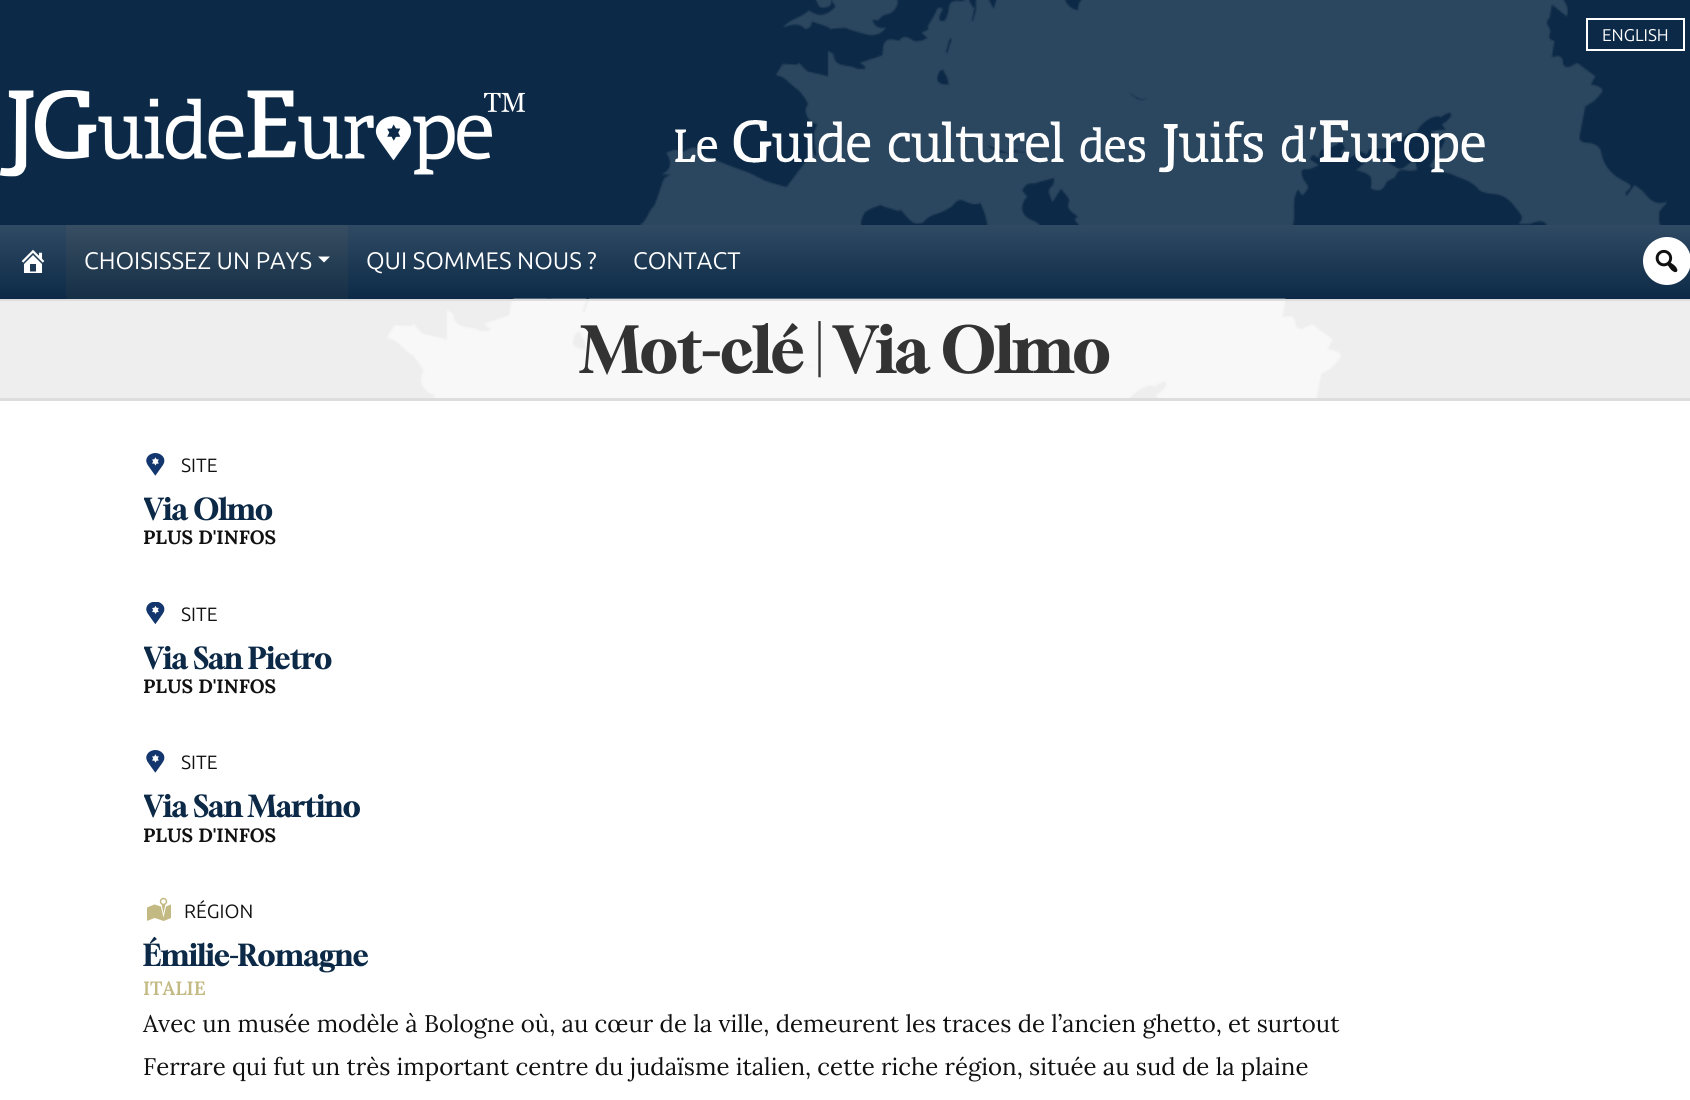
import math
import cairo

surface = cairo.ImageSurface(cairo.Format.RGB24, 1690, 1100)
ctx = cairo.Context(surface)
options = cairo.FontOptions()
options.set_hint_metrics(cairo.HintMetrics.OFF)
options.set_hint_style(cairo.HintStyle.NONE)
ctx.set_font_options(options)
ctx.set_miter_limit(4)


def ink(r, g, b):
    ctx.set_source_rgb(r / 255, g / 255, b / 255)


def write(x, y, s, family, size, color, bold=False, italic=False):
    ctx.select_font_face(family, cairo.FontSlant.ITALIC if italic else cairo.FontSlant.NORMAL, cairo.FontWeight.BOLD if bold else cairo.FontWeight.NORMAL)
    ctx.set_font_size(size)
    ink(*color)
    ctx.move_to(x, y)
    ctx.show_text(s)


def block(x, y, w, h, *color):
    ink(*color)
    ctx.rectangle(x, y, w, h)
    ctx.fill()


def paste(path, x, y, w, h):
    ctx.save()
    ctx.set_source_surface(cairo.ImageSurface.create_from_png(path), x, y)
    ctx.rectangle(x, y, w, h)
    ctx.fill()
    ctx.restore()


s1 = dict(family="Ubuntu Sans", size=17, color=(255, 255, 255))
s2 = dict(family="Ubuntu Sans", size=24, color=(255, 255, 255))
s3 = dict(family="Gloock", size=61.25, color=(51, 51, 51), bold=True)
s4 = dict(family="Ubuntu Sans", size=19.25, color=(17, 17, 17))
s5 = dict(family="Gloock", size=28.75, color=(12, 42, 71), bold=True)
s6 = dict(family="Lora", size=19.25, color=(17, 17, 17), bold=True)
s7 = dict(family="Lora SemiBold", size=19.25, color=(195, 185, 130))
s8 = dict(family="Lora", size=24, color=(17, 17, 17))

ink(255, 255, 255)
ctx.paint()
block(0, 0, 1690, 225, 12, 42, 71)
paste("pic1.png", 640, 0, 1027, 225)
ctx.rectangle(1587, 19, 97, 31)
ink(255, 255, 255)
ctx.stroke()
write(1602, 41, "ENGLISH", **s1)
paste("pic2.png", 0, 90, 525, 87)
paste("pic3.png", 675, 120, 810, 53)
gradient = cairo.LinearGradient(845, 225, 845, 299)
gradient.add_color_stop_rgba(0, 0.188, 0.29, 0.388, 1)
gradient.add_color_stop_rgba(1, 0.047, 0.165, 0.278, 1)
ctx.set_source(gradient)
ctx.rectangle(0, 225, 1690, 74)
ctx.fill()
paste("pic4.png", 21, 249, 24, 24)
gradient = cairo.LinearGradient(207, 225, 207, 299)
gradient.add_color_stop_rgba(0, 0.22, 0.306, 0.384, 1)
gradient.add_color_stop_rgba(1, 0.082, 0.184, 0.275, 1)
ctx.set_source(gradient)
ctx.rectangle(66, 225, 282, 74)
ctx.fill()
write(84, 269, "CHOISISSEZ UN PAYS", **s2)
ctx.new_path()
ctx.move_to(318, 256.5)
ctx.line_to(330, 256.5)
ctx.line_to(324, 262.5)
ctx.close_path()
ctx.fill()
write(366, 269, "QUI SOMMES NOUS ?", **s2)
write(633, 269, "CONTACT", **s2)
ctx.new_path()
ctx.arc(1667, 261, 24, 0, 2 * math.pi)
ctx.fill()
paste("pic5.png", 1655, 249, 23, 24)
block(0, 301, 1690, 97, 238, 238, 238)
paste("pic6.png", 387, 298, 954, 100)
block(0, 299, 1690, 2, 221, 221, 221)
block(0, 398, 1690, 3, 221, 221, 221)
write(581, 373, "Mot-clé | Via Olmo", **s3)
paste("pic7.png", 146, 453, 19, 23)
write(181, 472, "SITE", **s4)
ctx.save()
ctx.rectangle(144, 449, 1200, 100)
ctx.clip()
write(143, 520, "Via Olmo", **s5)
ctx.restore()
write(143, 544, "PLUS D'INFOS", **s6)
paste("pic8.png", 146, 602, 19, 23)
write(181, 621, "SITE", **s4)
ctx.save()
ctx.rectangle(144, 597, 1200, 101)
ctx.clip()
write(143, 669, "Via San Pietro", **s5)
ctx.restore()
write(143, 693, "PLUS D'INFOS", **s6)
paste("pic7.png", 146, 750, 19, 23)
write(181, 769, "SITE", **s4)
ctx.save()
ctx.rectangle(144, 746, 1200, 100)
ctx.clip()
write(143, 817, "Via San Martino", **s5)
ctx.restore()
write(143, 842, "PLUS D'INFOS", **s6)
paste("pic9.png", 147, 897, 24, 24)
write(184, 918, "RÉGION", **s4)
write(143, 966, "Émilie-Romagne", **s5)
write(143, 995, "ITALIE", **s7)
write(143, 1032, "Avec un musée modèle à Bologne où, au cœur de la ville, demeurent les traces de l’ancien ghetto, et surtout", **s8)
write(143, 1075, "Ferrare qui fut un très important centre du judaïsme italien, cette riche région, située au sud de la plaine", **s8)
surface.write_to_png("screenshot.png")
